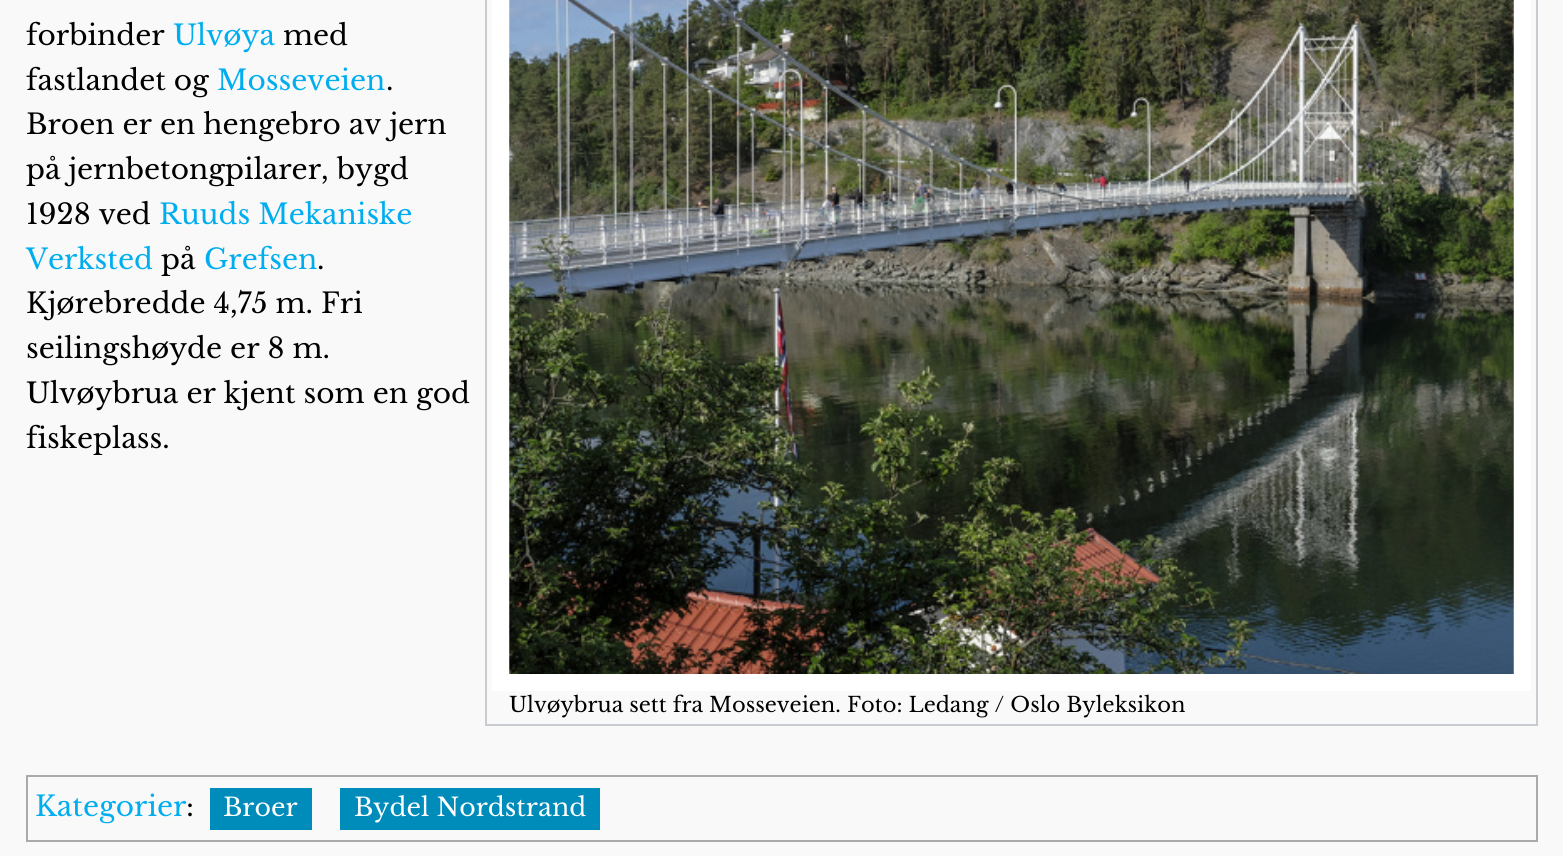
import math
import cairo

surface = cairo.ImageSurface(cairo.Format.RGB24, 1563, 856)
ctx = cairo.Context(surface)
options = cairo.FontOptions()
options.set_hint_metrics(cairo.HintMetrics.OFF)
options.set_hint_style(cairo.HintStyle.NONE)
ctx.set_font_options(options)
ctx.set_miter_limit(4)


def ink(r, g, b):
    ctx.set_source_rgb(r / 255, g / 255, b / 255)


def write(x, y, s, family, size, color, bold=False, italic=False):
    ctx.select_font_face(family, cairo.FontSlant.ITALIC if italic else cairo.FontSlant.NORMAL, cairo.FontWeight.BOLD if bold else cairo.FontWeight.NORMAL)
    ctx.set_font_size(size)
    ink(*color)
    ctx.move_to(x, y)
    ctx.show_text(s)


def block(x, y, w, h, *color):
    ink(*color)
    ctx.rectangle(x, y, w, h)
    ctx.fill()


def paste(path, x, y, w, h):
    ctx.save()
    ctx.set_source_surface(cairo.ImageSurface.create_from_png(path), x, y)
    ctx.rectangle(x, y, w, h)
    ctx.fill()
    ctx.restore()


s1 = dict(family="Libre Baskerville", size=28, color=(0, 0, 0))
s2 = dict(family="Libre Baskerville", size=28, color=(0, 174, 239))
s3 = dict(family="Libre Baskerville", size=21, color=(0, 0, 0))
s4 = dict(family="Libre Baskerville", size=25.25, color=(255, 255, 255))

ink(250, 249, 250)
ctx.paint()
write(26, 45, "forbinder", **s1)
write(173, 45, "Ulvøya", **s2)
write(283, 45, "med", **s1)
write(26, 90, "fastlandet og", **s1)
write(217, 90, "Mosseveien", **s2)
write(386, 90, ".", **s1)
write(26, 134, "Broen er en hengebro av jern", **s1)
write(26, 179, "på jernbetongpilarer, bygd", **s1)
write(26, 224, "1928 ved", **s1)
write(159, 224, "Ruuds Mekaniske", **s2)
write(26, 269, "Verksted", **s2)
write(161, 269, "på", **s1)
write(204, 269, "Grefsen", **s2)
write(317, 269, ".", **s1)
write(26, 313, "Kjørebredde 4,75 m. Fri", **s1)
write(26, 358, "seilingshøyde er 8 m.", **s1)
write(26, 403, "Ulvøybrua er kjent som en god", **s1)
write(26, 448, "fiskeplass.", **s1)
ctx.rectangle(486, -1, 1051, 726)
ink(200, 204, 209)
ctx.stroke()
block(492, 0, 1039, 691, 255, 255, 255)
paste("pic1.png", 509, 0, 1005, 674)
write(509, 712, "Ulvøybrua sett fra Mosseveien. Foto: Ledang / Oslo Byleksikon", **s3)
ctx.rectangle(27, 776, 1510, 65)
ink(170, 170, 170)
ctx.stroke()
write(35, 816, "Kategorier", **s2)
write(186, 816, ":", **s1)
block(210, 788, 102, 42, 0, 140, 186)
write(223, 816, "Broer", **s4)
block(340, 788, 260, 42, 0, 140, 186)
write(354, 816, "Bydel Nordstrand", **s4)
surface.write_to_png("screenshot.png")
